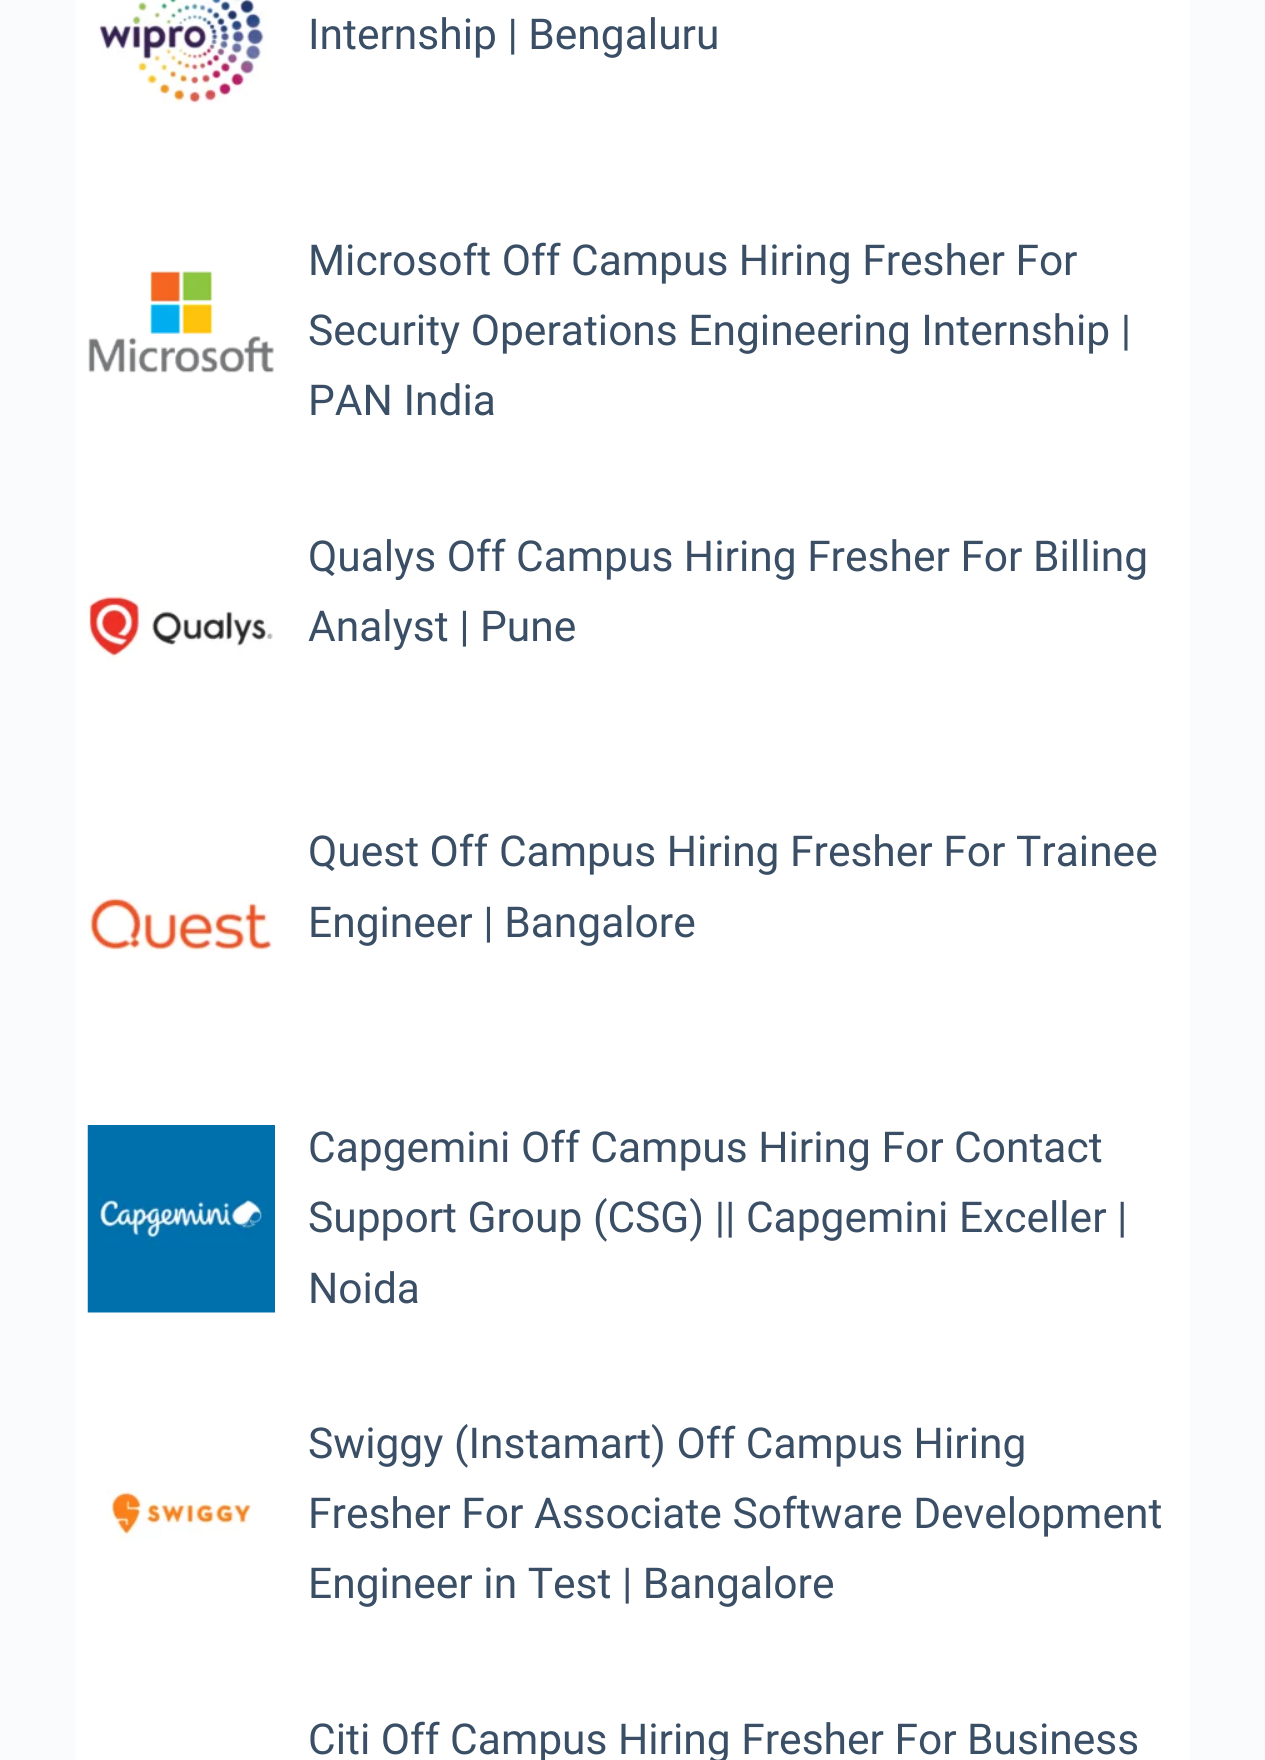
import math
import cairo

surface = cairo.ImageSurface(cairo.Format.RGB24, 1265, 1760)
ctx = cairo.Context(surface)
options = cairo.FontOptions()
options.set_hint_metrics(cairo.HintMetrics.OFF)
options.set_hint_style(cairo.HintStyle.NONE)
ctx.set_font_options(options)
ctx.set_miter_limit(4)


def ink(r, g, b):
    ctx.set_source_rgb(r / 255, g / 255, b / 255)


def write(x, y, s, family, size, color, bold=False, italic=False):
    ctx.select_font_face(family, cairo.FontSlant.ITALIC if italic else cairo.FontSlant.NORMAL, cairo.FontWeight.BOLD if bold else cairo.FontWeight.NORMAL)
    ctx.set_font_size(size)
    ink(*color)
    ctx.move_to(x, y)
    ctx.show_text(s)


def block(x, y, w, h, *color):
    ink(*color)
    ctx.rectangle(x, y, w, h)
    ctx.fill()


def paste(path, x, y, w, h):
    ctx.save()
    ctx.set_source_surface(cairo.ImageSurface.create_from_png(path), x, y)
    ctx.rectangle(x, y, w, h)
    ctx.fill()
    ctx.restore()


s1 = dict(family="Roboto", size=42.5, color=(58, 79, 102))

ink(250, 251, 252)
ctx.paint()
block(75, 0, 1115, 1760, 255, 255, 255)
paste("pic1.png", 98, 0, 170, 104)
write(308, 49, "Internship | Bengaluru", **s1)
write(308, 275, "Microsoft Off Campus Hiring Fresher For", **s1)
paste("pic2.png", 88, 271, 186, 102)
write(308, 345, "Security Operations Engineering Internship |", **s1)
write(308, 415, "PAN India", **s1)
write(308, 571, "Qualys Off Campus Hiring Fresher For Billing", **s1)
paste("pic3.png", 87, 593, 186, 69)
write(308, 641, "Analyst | Pune", **s1)
write(308, 866, "Quest Off Campus Hiring Fresher For Trainee", **s1)
paste("pic4.png", 88, 896, 187, 55)
write(308, 937, "Engineer | Bangalore", **s1)
paste("pic5.png", 87, 1125, 188, 188)
write(308, 1162, "Capgemini Off Campus Hiring For Contact", **s1)
write(308, 1232, "Support Group (CSG) || Capgemini Exceller |", **s1)
write(308, 1303, "Noida", **s1)
write(308, 1458, "Swiggy (Instamart) Off Campus Hiring", **s1)
paste("pic6.png", 107, 1490, 150, 50)
write(308, 1528, "Fresher For Associate Software Development", **s1)
write(308, 1598, "Engineer in Test | Bangalore", **s1)
write(308, 1754, "Citi Off Campus Hiring Fresher For Business", **s1)
surface.write_to_png("screenshot.png")
